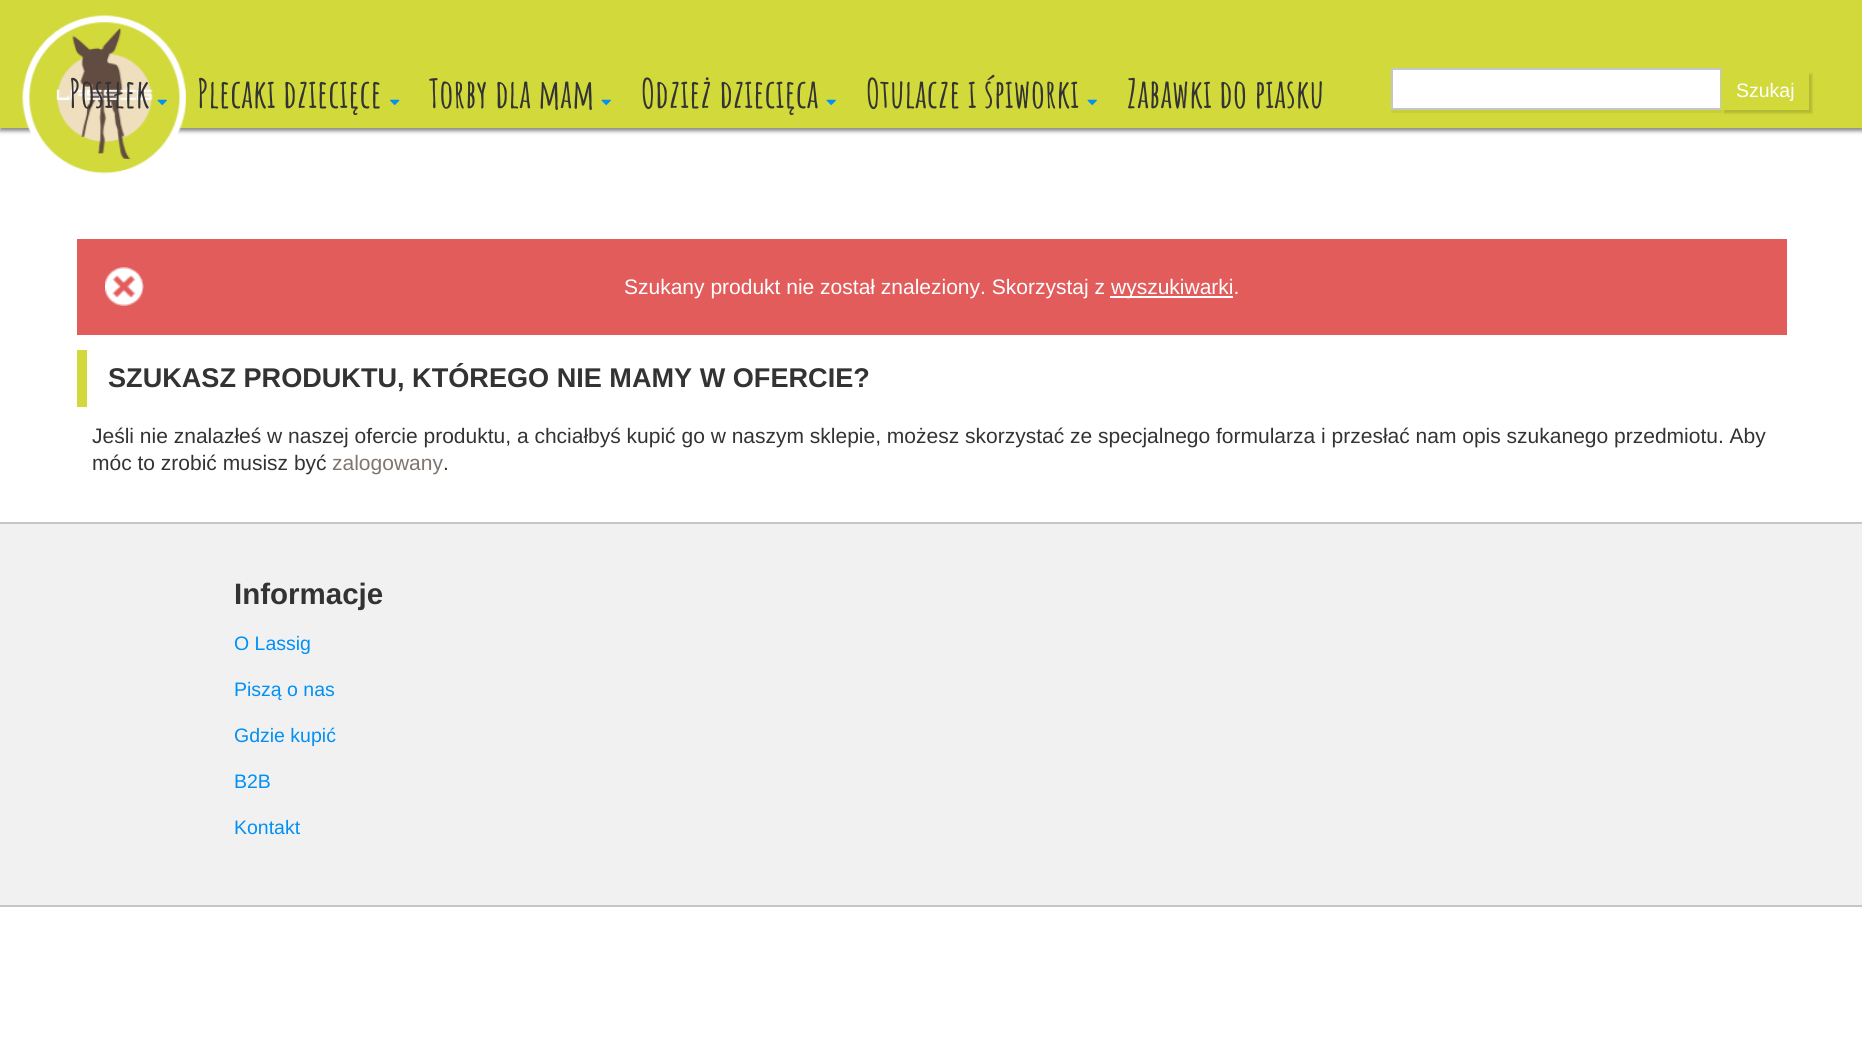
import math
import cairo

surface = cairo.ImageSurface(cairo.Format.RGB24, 1862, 1055)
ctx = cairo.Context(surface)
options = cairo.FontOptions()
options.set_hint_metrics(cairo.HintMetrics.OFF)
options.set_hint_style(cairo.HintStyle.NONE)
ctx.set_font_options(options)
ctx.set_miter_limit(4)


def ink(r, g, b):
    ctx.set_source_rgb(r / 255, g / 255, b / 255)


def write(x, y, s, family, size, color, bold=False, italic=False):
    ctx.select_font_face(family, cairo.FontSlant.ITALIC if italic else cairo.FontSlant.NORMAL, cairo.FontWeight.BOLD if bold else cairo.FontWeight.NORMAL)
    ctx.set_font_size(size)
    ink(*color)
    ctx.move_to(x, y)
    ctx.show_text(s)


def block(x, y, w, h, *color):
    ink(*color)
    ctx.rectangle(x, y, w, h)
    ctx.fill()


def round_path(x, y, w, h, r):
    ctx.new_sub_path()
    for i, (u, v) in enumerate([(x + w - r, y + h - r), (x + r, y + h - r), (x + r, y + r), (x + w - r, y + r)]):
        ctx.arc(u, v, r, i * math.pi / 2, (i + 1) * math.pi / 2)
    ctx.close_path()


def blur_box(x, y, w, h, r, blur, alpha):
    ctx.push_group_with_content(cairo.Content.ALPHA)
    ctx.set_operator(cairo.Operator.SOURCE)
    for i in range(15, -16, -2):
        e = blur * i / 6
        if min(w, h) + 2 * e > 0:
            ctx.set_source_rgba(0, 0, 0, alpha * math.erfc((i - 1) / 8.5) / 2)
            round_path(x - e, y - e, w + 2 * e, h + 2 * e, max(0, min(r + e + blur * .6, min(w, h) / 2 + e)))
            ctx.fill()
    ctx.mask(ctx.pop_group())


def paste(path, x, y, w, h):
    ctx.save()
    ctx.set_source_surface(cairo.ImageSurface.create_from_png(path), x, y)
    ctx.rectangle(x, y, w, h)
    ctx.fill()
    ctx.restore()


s1 = dict(family="Amatic SC", size=39.5, color=(51, 51, 51), bold=True)
s2 = dict(family="Liberation Sans", size=19.5, color=(255, 255, 255))
s3 = dict(family="Liberation Sans", size=21, color=(255, 255, 255))
s4 = dict(family="Liberation Sans", size=27.1, color=(51, 51, 51), bold=True)
s5 = dict(family="Liberation Sans", size=21, color=(51, 51, 51))
s6 = dict(family="Liberation Sans", size=21, color=(126, 118, 112))
s7 = dict(family="Liberation Sans", size=29.5, color=(51, 51, 51), bold=True)
s8 = dict(family="Liberation Sans", size=19.5, color=(0, 144, 246))

ink(255, 255, 255)
ctx.paint()
ink(136, 136, 136)
blur_box(0, 3, 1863, 128, 0, 2, 1)
block(0, 0, 1862, 128, 209, 217, 59)
paste("pic1.png", 22, 15, 164, 159)
write(69, 108, "Posiłek", **s1)
paste("pic2.png", 157, 99, 10, 6)
write(197, 108, "Plecaki dziecięce", **s1)
paste("pic3.png", 390, 99, 10, 6)
write(429, 108, "Torby dla mam", **s1)
paste("pic2.png", 601, 99, 10, 6)
write(641, 108, "Odzież dziecięca", **s1)
paste("pic2.png", 826, 99, 10, 6)
write(866, 108, "Otulacze i śpiworki", **s1)
paste("pic2.png", 1087, 99, 10, 6)
write(1127, 108, "Zabawki do piasku", **s1)
block(1391, 110, 331, 3, 199, 206, 56)
ink(255, 255, 255)
ctx.rectangle(1392, 69, 329, 40)
ctx.fill_preserve()
ink(196, 199, 200)
ctx.stroke()
ink(0, 0, 0)
blur_box(1724, 74, 88, 39, 0, 1, 0.15)
block(1721, 71, 88, 39, 209, 217, 59)
write(1736, 97, "Szukaj", **s2)
block(77, 239, 1710, 96, 227, 92, 92)
paste("pic4.png", 105, 267, 39, 39)
write(624, 294, "Szukany produkt nie został znaleziony. Skorzystaj z", **s3)
block(1110, 296, 123, 2, 255, 255, 255)
write(1111, 294, "wyszukiwarki.", **s3)
block(77, 350, 10, 57, 209, 217, 59)
write(108, 387, "SZUKASZ PRODUKTU, KTÓREGO NIE MAMY W OFERCIE?", **s4)
write(92, 443, "Jeśli nie znalazłeś w naszej ofercie produktu, a chciałbyś kupić go w naszym sklepie, możesz skorzystać ze specjalnego formularza i przesłać nam opis szukanego przedmiotu. Aby", **s5)
write(92, 470, "móc to zrobić musisz być", **s5)
write(332, 470, "zalogowany", **s6)
write(443, 470, ".", **s5)
block(0, 524, 1862, 381, 241, 241, 241)
block(0, 522, 1862, 2, 195, 199, 200)
write(234, 604, "Informacje", **s7)
write(234, 650, "O Lassig", **s8)
write(234, 696, "Piszą o nas", **s8)
write(234, 742, "Gdzie kupić", **s8)
write(234, 788, "B2B", **s8)
write(234, 834, "Kontakt", **s8)
block(0, 905, 1862, 2, 196, 199, 200)
surface.write_to_png("screenshot.png")
